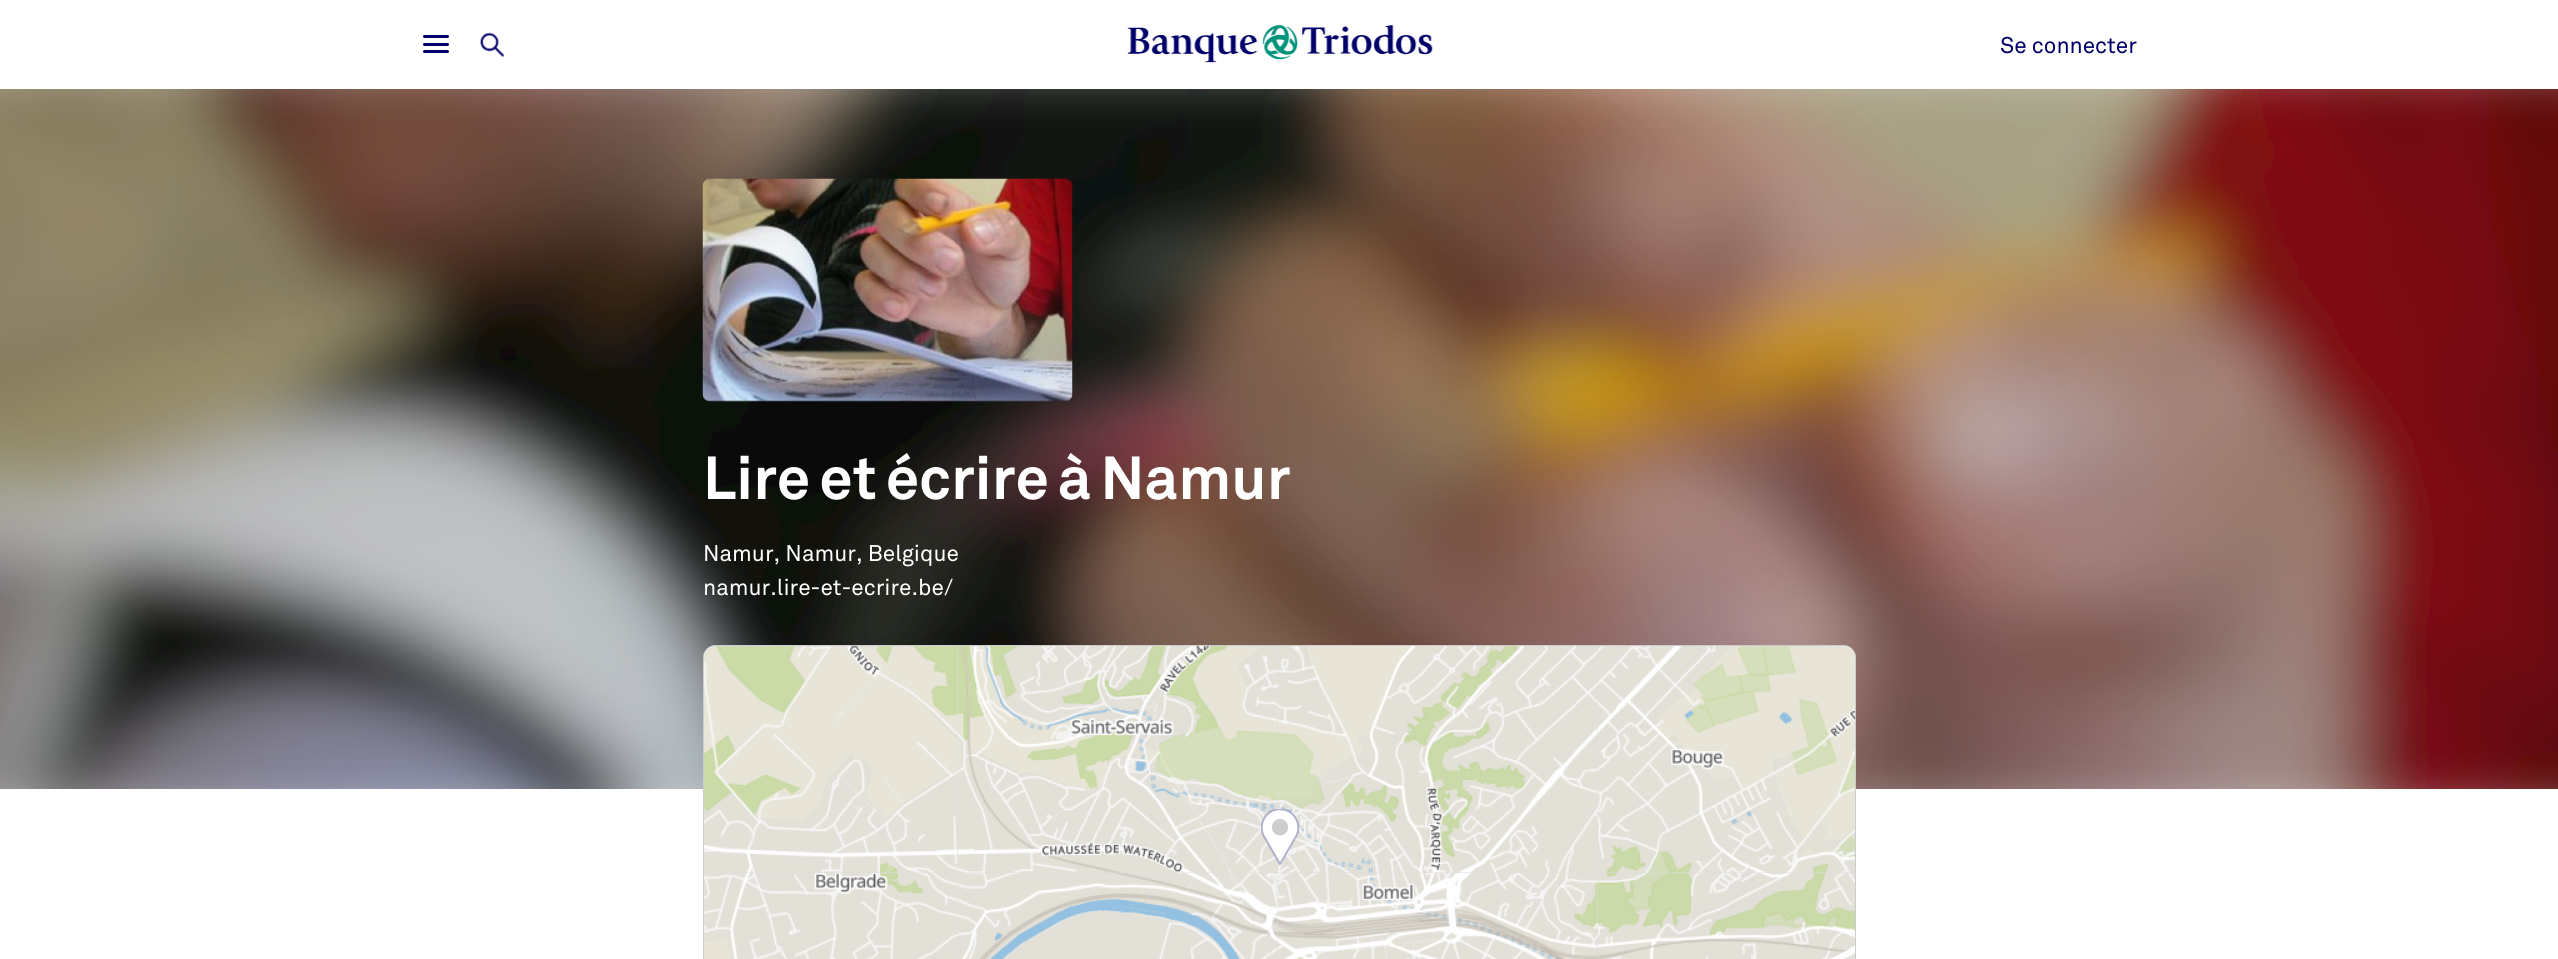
import math
import cairo

surface = cairo.ImageSurface(cairo.Format.RGB24, 2558, 959)
ctx = cairo.Context(surface)
options = cairo.FontOptions()
options.set_hint_metrics(cairo.HintMetrics.OFF)
options.set_hint_style(cairo.HintStyle.NONE)
ctx.set_font_options(options)
ctx.set_miter_limit(4)


def ink(r, g, b):
    ctx.set_source_rgb(r / 255, g / 255, b / 255)


def write(x, y, s, family, size, color, bold=False, italic=False):
    ctx.select_font_face(family, cairo.FontSlant.ITALIC if italic else cairo.FontSlant.NORMAL, cairo.FontWeight.BOLD if bold else cairo.FontWeight.NORMAL)
    ctx.set_font_size(size)
    ink(*color)
    ctx.move_to(x, y)
    ctx.show_text(s)


def write_spaced(x, y, s, letter, word):
    ctx.move_to(x, y)
    for ch in s:
        ctx.show_text(ch)
        ctx.rel_move_to(letter + word * (ch == ' '), 0)


def round_path(x, y, w, h, r):
    ctx.new_sub_path()
    for i, (u, v) in enumerate([(x + w - r, y + h - r), (x + r, y + h - r), (x + r, y + r), (x + w - r, y + r)]):
        ctx.arc(u, v, r, i * math.pi / 2, (i + 1) * math.pi / 2)
    ctx.close_path()


def paste(path, x, y, w, h):
    ctx.save()
    ctx.set_source_surface(cairo.ImageSurface.create_from_png(path), x, y)
    ctx.rectangle(x, y, w, h)
    ctx.fill()
    ctx.restore()


s1 = dict(family="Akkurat", size=22.5, color=(0, 0, 107))
s2 = dict(family="Akkurat", size=22.5, color=(255, 255, 255))

ink(255, 255, 255)
ctx.paint()
ink(0, 0, 107)
round_path(423, 43, 26, 3, 1.5)
ctx.fill()
round_path(423, 35, 26, 3, 1.5)
ctx.fill()
round_path(423, 50, 26, 3, 1.5)
ctx.fill()
paste("pic1.png", 480, 32, 25, 25)
paste("pic2.png", 1127, 25, 306, 38)
write(2000, 53, "Se connecter", **s1)
paste("pic3.png", 0, 89, 2558, 700)
paste("pic4.png", 702, 178, 371, 224)
ctx.select_font_face("Akkurat", cairo.FontSlant.NORMAL, cairo.FontWeight.BOLD)
ctx.set_font_size(60)
ink(255, 255, 255)
write_spaced(703, 499, "Lire et écrire à Namur", 0, -3.5)
write(703, 561, "Namur, Namur, Belgique", **s2)
write(703, 595, "namur.lire-et-ecrire.be/", **s2)
round_path(703, 645, 1153, 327, 13)
ctx.fill()
round_path(703.5, 645.5, 1152, 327, 12.5)
ctx.set_source_rgba(0.608, 0.608, 0.608, 0.5)
ctx.set_line_width(1)
ctx.stroke()
ink(221, 221, 221)
ctx.new_path()
ctx.move_to(715, 646)
ctx.line_to(1844, 646)
ctx.curve_to(1850, 646, 1855, 651, 1855, 657)
ctx.line_to(1855, 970)
ctx.line_to(704, 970)
ctx.line_to(704, 657)
ctx.curve_to(704, 651, 709, 646, 715, 646)
ctx.close_path()
ctx.fill()
paste("pic5.png", 704, 646, 254, 227)
paste("pic6.png", 958, 646, 320, 227)
paste("pic7.png", 1278, 646, 320, 227)
paste("pic8.png", 1598, 646, 257, 227)
paste("pic9.png", 704, 873, 254, 86)
paste("pic10.png", 958, 873, 320, 86)
paste("pic11.png", 1278, 873, 320, 86)
paste("pic12.png", 1598, 873, 257, 86)
paste("pic13.png", 1261, 809, 38, 56)
surface.write_to_png("screenshot.png")
